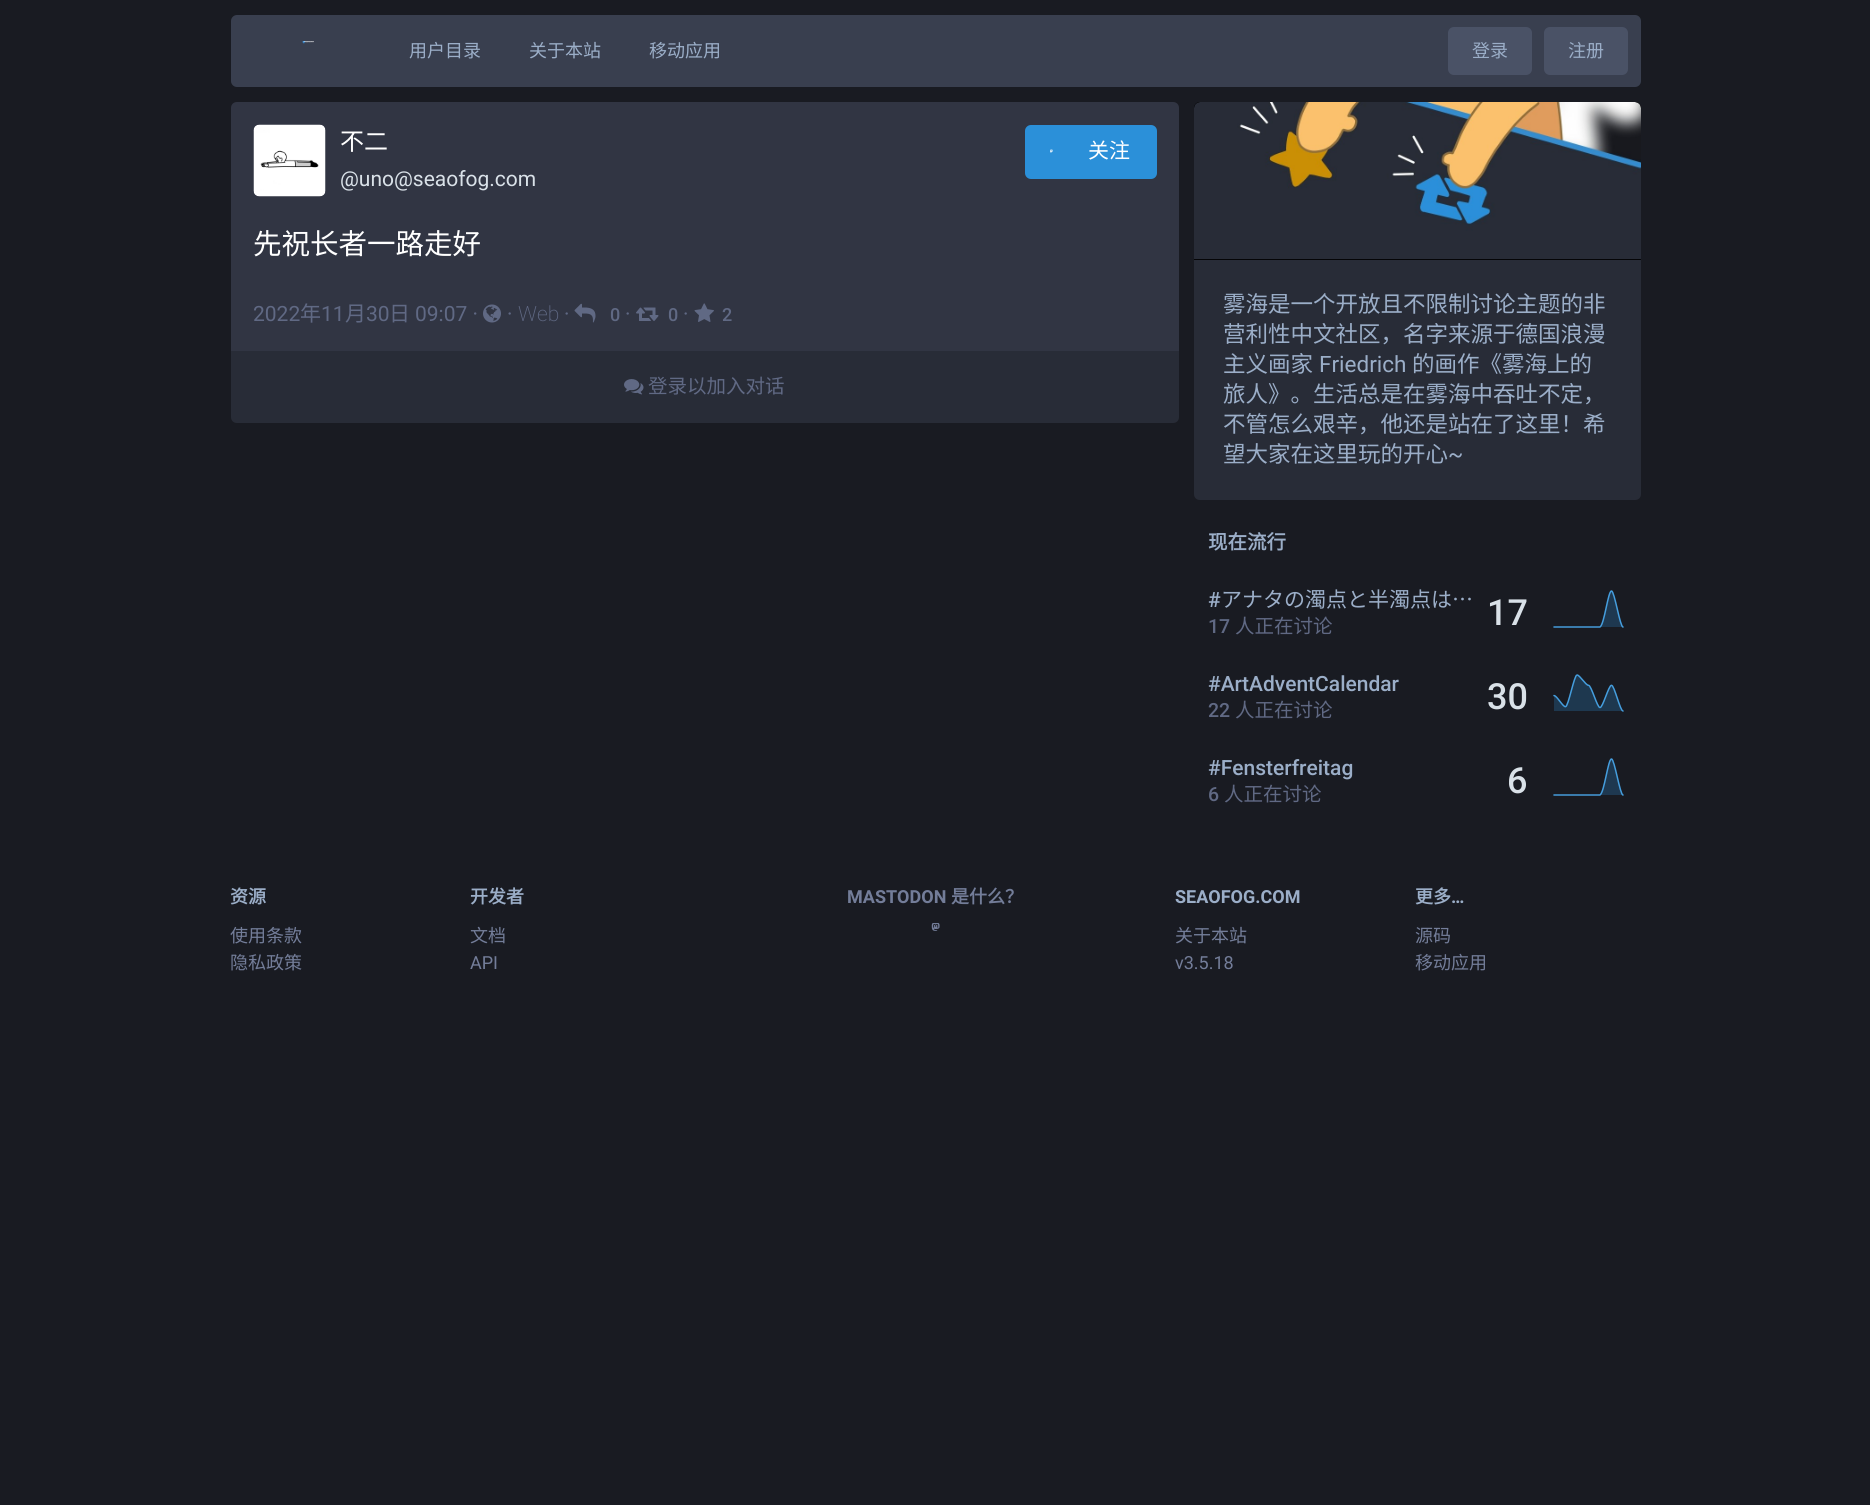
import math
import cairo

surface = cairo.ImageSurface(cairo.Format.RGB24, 1870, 1505)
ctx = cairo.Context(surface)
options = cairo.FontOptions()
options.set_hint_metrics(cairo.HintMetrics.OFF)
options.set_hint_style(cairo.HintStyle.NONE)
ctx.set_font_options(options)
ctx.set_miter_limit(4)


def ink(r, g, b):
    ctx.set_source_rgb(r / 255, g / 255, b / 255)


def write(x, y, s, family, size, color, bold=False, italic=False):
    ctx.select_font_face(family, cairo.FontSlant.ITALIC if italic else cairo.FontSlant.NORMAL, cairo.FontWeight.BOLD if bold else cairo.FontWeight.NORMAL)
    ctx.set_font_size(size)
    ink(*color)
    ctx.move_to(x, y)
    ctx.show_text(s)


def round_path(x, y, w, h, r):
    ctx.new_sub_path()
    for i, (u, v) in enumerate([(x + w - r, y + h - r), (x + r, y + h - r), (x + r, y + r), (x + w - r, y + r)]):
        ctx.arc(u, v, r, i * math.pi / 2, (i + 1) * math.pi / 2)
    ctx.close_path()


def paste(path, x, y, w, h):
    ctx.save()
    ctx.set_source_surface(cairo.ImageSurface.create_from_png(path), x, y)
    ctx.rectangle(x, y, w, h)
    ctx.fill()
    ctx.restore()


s1 = dict(family="Noto Sans CJK SC", size=18, color=(155, 174, 200))
s2 = dict(family="Noto Sans CJK SC", size=24, color=(255, 255, 255))
s3 = dict(family="Roboto", size=21, color=(217, 225, 232))
s4 = dict(family="Noto Sans CJK SC", size=21, color=(255, 255, 255))
s5 = dict(family="Noto Sans CJK SC", size=28.5, color=(255, 255, 255))
s6 = dict(family="Roboto", size=21, color=(96, 105, 132))
s7 = dict(family="Noto Sans CJK SC", size=21, color=(96, 105, 132))
s8 = dict(family="Roboto ExtraLight", size=21, color=(96, 105, 132))
s9 = dict(family="Roboto Medium", size=18, color=(96, 105, 132))
s10 = dict(family="Noto Sans CJK SC", size=19.5, color=(96, 105, 132))
s11 = dict(family="Noto Sans CJK SC", size=22.5, color=(155, 174, 200))
s12 = dict(family="Roboto", size=22.5, color=(155, 174, 200))
s13 = dict(family="Noto Sans CJK SC", size=19.5, color=(155, 174, 200), bold=True)
s14 = dict(family="Roboto Medium", size=21, color=(155, 174, 200))
s15 = dict(family="Noto Sans CJK SC", size=21, color=(155, 174, 200))
s16 = dict(family="Roboto Medium", size=19.5, color=(96, 105, 132))
s17 = dict(family="Roboto Medium", size=36, color=(217, 225, 232))
s18 = dict(family="Noto Sans CJK SC", size=18, color=(155, 174, 200), bold=True)
s19 = dict(family="Noto Sans CJK SC", size=18, color=(115, 125, 153))
s20 = dict(family="Roboto", size=18, color=(115, 125, 153))
s21 = dict(family="Roboto", size=18, color=(115, 125, 153), bold=True)
s22 = dict(family="Noto Sans CJK SC", size=18, color=(115, 125, 153), bold=True)
s23 = dict(family="Roboto", size=18, color=(155, 174, 200), bold=True)

ink(25, 27, 34)
ctx.paint()
ink(57, 63, 79)
round_path(231, 15, 1410, 72, 6)
ctx.fill()
paste("pic1.png", 302, 41, 12, 3)
write(409, 57, "用户目录", **s1)
write(529, 57, "关于本站", **s1)
write(649, 57, "移动应用", **s1)
ink(74, 82, 102)
round_path(1448, 27, 84, 48, 6)
ctx.fill()
write(1472, 57, "登录", **s1)
ink(74, 82, 102)
round_path(1544, 27, 84, 48, 6)
ctx.fill()
write(1568, 57, "注册", **s1)
ink(49, 53, 67)
ctx.new_path()
ctx.move_to(237, 102)
ctx.line_to(1173, 102)
ctx.curve_to(1176.5, 102, 1179, 104.5, 1179, 108)
ctx.line_to(1179, 351)
ctx.line_to(231, 351)
ctx.line_to(231, 108)
ctx.curve_to(231, 104.5, 233.5, 102, 237, 102)
ctx.close_path()
ctx.fill()
paste("pic2.png", 253, 124, 73, 73)
write(340, 150, "不二", **s2)
write(340, 186, "@uno@seaofog.com", **s3)
ink(43, 144, 217)
round_path(1025, 125, 132, 54, 6)
ctx.fill()
paste("pic3.png", 1050, 149, 3, 4)
write(1088, 158, "关注", **s4)
write(253, 254, "先祝长者一路走好", **s5)
write(253, 321, "2022", **s6)
write(300, 321, "年", **s7)
write(321, 321, "11", **s6)
write(345, 321, "月", **s7)
write(366, 321, "30", **s6)
write(389, 321, "日", **s7)
write(415, 321, "09:07 ·", **s6)
paste("pic4.png", 483, 304, 18, 19)
write(507, 321, "·", **s6)
write(518, 321, "Web", **s8)
write(564, 321, "·", **s6)
paste("pic5.png", 574, 303, 22, 20)
write(610, 321, "0", **s9)
write(625, 321, "·", **s6)
paste("pic6.png", 636, 307, 23, 14)
write(668, 321, "0", **s9)
write(683, 321, "·", **s6)
paste("pic7.png", 694, 303, 20, 19)
write(722, 321, "2", **s9)
ink(40, 44, 55)
ctx.new_path()
ctx.move_to(231, 351)
ctx.line_to(1179, 351)
ctx.line_to(1179, 417)
ctx.curve_to(1179, 420.5, 1176.5, 423, 1173, 423)
ctx.line_to(237, 423)
ctx.curve_to(233.5, 423, 231, 420.5, 231, 417)
ctx.close_path()
ctx.fill()
paste("pic8.png", 624, 379, 20, 16)
write(648, 393, "登录以加入对话", **s10)
ink(0, 0, 0)
ctx.new_path()
ctx.move_to(1200, 102)
ctx.line_to(1635, 102)
ctx.curve_to(1638.5, 102, 1641, 104.5, 1641, 108)
ctx.line_to(1641, 260)
ctx.line_to(1194, 260)
ctx.line_to(1194, 108)
ctx.curve_to(1194, 104.5, 1196.5, 102, 1200, 102)
ctx.close_path()
ctx.fill()
paste("pic9.png", 1194, 102, 447, 158)
ink(40, 44, 55)
ctx.new_path()
ctx.move_to(1194, 260)
ctx.line_to(1641, 260)
ctx.line_to(1641, 494)
ctx.curve_to(1641, 497.5, 1638.5, 500, 1635, 500)
ctx.line_to(1200, 500)
ctx.curve_to(1196.5, 500, 1194, 497.5, 1194, 494)
ctx.close_path()
ctx.fill()
write(1223, 312, "雾海是一个开放且不限制讨论主题的非", **s11)
write(1223, 342, "营利性中文社区，名字来源于德国浪漫", **s11)
write(1223, 372, "主义画家", **s11)
write(1319, 372, "Friedrich", **s12)
write(1412, 372, "的画作《雾海上的", **s11)
write(1223, 402, "旅人》。生活总是在雾海中吞吐不定，", **s11)
write(1223, 432, "不管怎么艰辛，他还是站在了这里！希", **s11)
write(1223, 462, "望大家在这里玩的开心", **s11)
write(1448, 462, "~", **s12)
write(1208, 549, "现在流行", **s13)
write(1208, 607, "#", **s14)
write(1221, 607, "アナタの濁点と半濁点は…", **s15)
write(1208, 633, "17", **s16)
write(1235, 633, "人正在讨论", **s10)
write(1487, 625, "17", **s17)
ink(30, 56, 80)
ctx.new_path()
ctx.move_to(1554, 627)
ctx.line_to(1600, 627)
ctx.curve_to(1605, 624, 1608, 591, 1611, 591)
ctx.curve_to(1614, 591, 1620, 627, 1623, 627)
ctx.line_to(1554, 627)
ctx.fill()
ctx.new_path()
ctx.move_to(1554, 627)
ctx.line_to(1600, 627)
ctx.curve_to(1604.5, 624, 1608, 591, 1611.5, 591)
ctx.curve_to(1614.5, 591, 1620, 627, 1623, 627)
ink(69, 158, 222)
ctx.set_line_width(1.5)
ctx.set_line_cap(cairo.LineCap.ROUND)
ctx.set_line_join(cairo.LineJoin.ROUND)
ctx.stroke()
write(1208, 691, "#ArtAdventCalendar", **s14)
write(1208, 717, "22", **s16)
write(1235, 717, "人正在讨论", **s10)
write(1487, 709, "30", **s17)
paste("pic10.png", 1553, 674, 71, 38)
write(1208, 775, "#Fensterfreitag", **s14)
write(1208, 801, "6", **s16)
write(1224, 801, "人正在讨论", **s10)
write(1507, 793, "6", **s17)
ink(30, 56, 80)
ctx.new_path()
ctx.move_to(1554, 795)
ctx.line_to(1600, 795)
ctx.curve_to(1605, 792, 1608, 759, 1611, 759)
ctx.curve_to(1614, 759, 1620, 795, 1623, 795)
ctx.line_to(1554, 795)
ctx.fill()
ctx.new_path()
ctx.move_to(1554, 795)
ctx.line_to(1600, 795)
ctx.curve_to(1604.5, 792, 1608, 759, 1611.5, 759)
ctx.curve_to(1614.5, 759, 1620, 795, 1623, 795)
ink(69, 158, 222)
ctx.stroke()
write(230, 903, "资源", **s18)
write(230, 942, "使用条款", **s19)
write(230, 969, "隐私政策", **s19)
write(470, 903, "开发者", **s18)
write(470, 942, "文档", **s19)
write(470, 969, "API", **s20)
write(847, 903, "MASTODON", **s21)
write(951, 903, "是什么？", **s22)
paste("pic11.png", 931, 923, 9, 8)
write(1175, 903, "SEAOFOG.COM", **s23)
write(1175, 942, "关于本站", **s19)
write(1175, 969, "v3.5.18", **s20)
write(1415, 903, "更多", **s18)
write(1451, 903, "…", **s23)
write(1415, 942, "源码", **s19)
write(1415, 969, "移动应用", **s19)
surface.write_to_png("screenshot.png")
